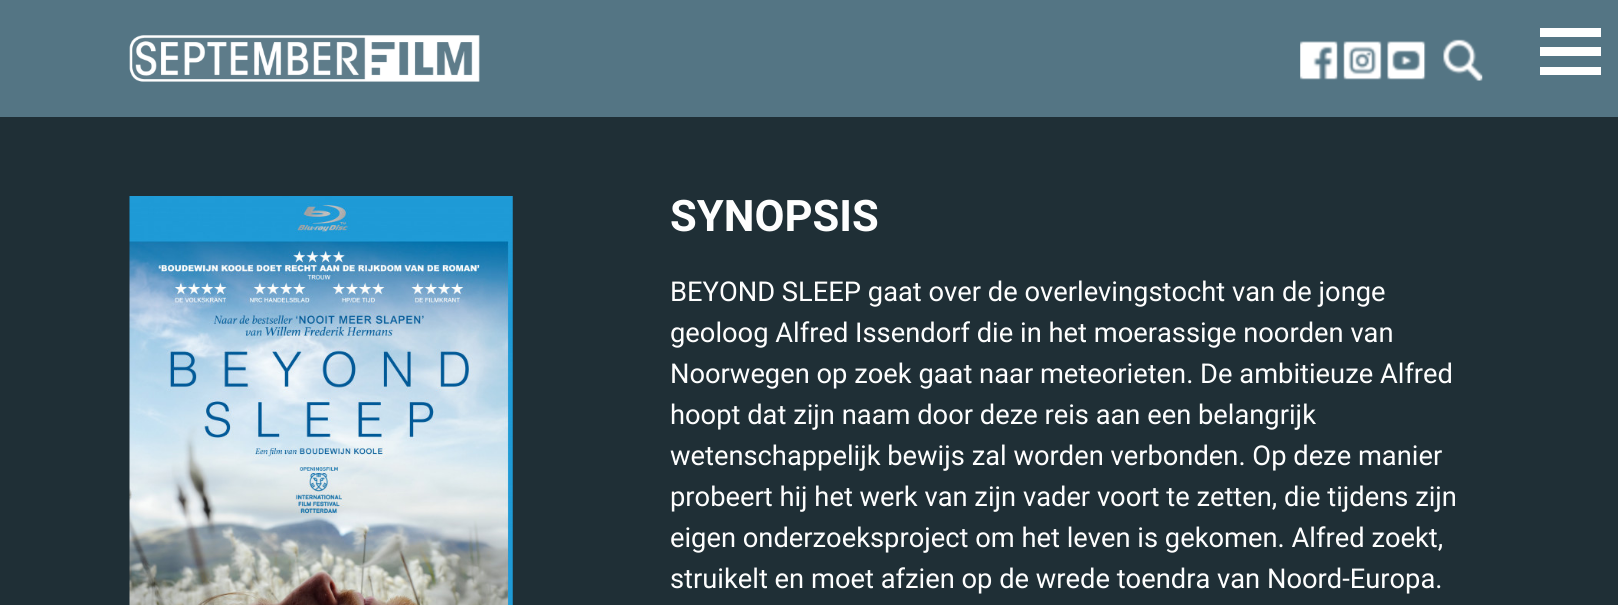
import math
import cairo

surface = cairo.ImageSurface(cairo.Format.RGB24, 1618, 605)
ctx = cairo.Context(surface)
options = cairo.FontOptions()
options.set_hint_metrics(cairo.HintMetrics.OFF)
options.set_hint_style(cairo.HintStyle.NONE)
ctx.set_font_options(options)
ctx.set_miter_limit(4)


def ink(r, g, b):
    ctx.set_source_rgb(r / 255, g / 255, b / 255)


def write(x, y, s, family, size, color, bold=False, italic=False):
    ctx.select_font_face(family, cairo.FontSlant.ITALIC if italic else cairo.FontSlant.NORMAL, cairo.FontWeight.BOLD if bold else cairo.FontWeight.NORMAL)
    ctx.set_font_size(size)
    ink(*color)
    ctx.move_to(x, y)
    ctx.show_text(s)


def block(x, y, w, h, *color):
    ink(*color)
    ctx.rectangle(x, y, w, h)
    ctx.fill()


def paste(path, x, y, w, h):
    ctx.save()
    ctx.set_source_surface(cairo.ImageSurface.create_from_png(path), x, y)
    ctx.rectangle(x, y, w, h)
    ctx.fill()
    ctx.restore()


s1 = dict(family="Roboto", size=43.5, color=(254, 254, 254), bold=True)
s2 = dict(family="Roboto", size=27.3, color=(254, 254, 254))

ink(31, 47, 54)
ctx.paint()
block(0, 0, 1618, 117, 84, 117, 132)
paste("pic1.png", 129, 35, 351, 47)
paste("pic2.png", 1300, 41, 38, 39)
paste("pic3.png", 1343, 41, 39, 39)
paste("pic4.png", 1387, 41, 39, 39)
paste("pic5.png", 1443, 39, 40, 42)
block(1540, 28, 61, 9, 254, 254, 254)
block(1540, 47, 61, 9, 254, 254, 254)
block(1540, 67, 61, 8, 254, 254, 254)
paste("pic6.png", 129, 196, 384, 409)
write(670, 231, "SYNOPSIS", **s1)
write(670, 301, "BEYOND SLEEP gaat over de overlevingstocht van de jonge", **s2)
write(670, 342, "geoloog Alfred Issendorf die in het moerassige noorden van", **s2)
write(670, 383, "Noorwegen op zoek gaat naar meteorieten. De ambitieuze Alfred", **s2)
write(670, 424, "hoopt dat zijn naam door deze reis aan een belangrijk", **s2)
write(670, 465, "wetenschappelijk bewijs zal worden verbonden. Op deze manier", **s2)
write(670, 506, "probeert hij het werk van zijn vader voort te zetten, die tijdens zijn", **s2)
write(670, 547, "eigen onderzoeksproject om het leven is gekomen. Alfred zoekt,", **s2)
write(670, 588, "struikelt en moet afzien op de wrede toendra van Noord-Europa.", **s2)
surface.write_to_png("screenshot.png")
